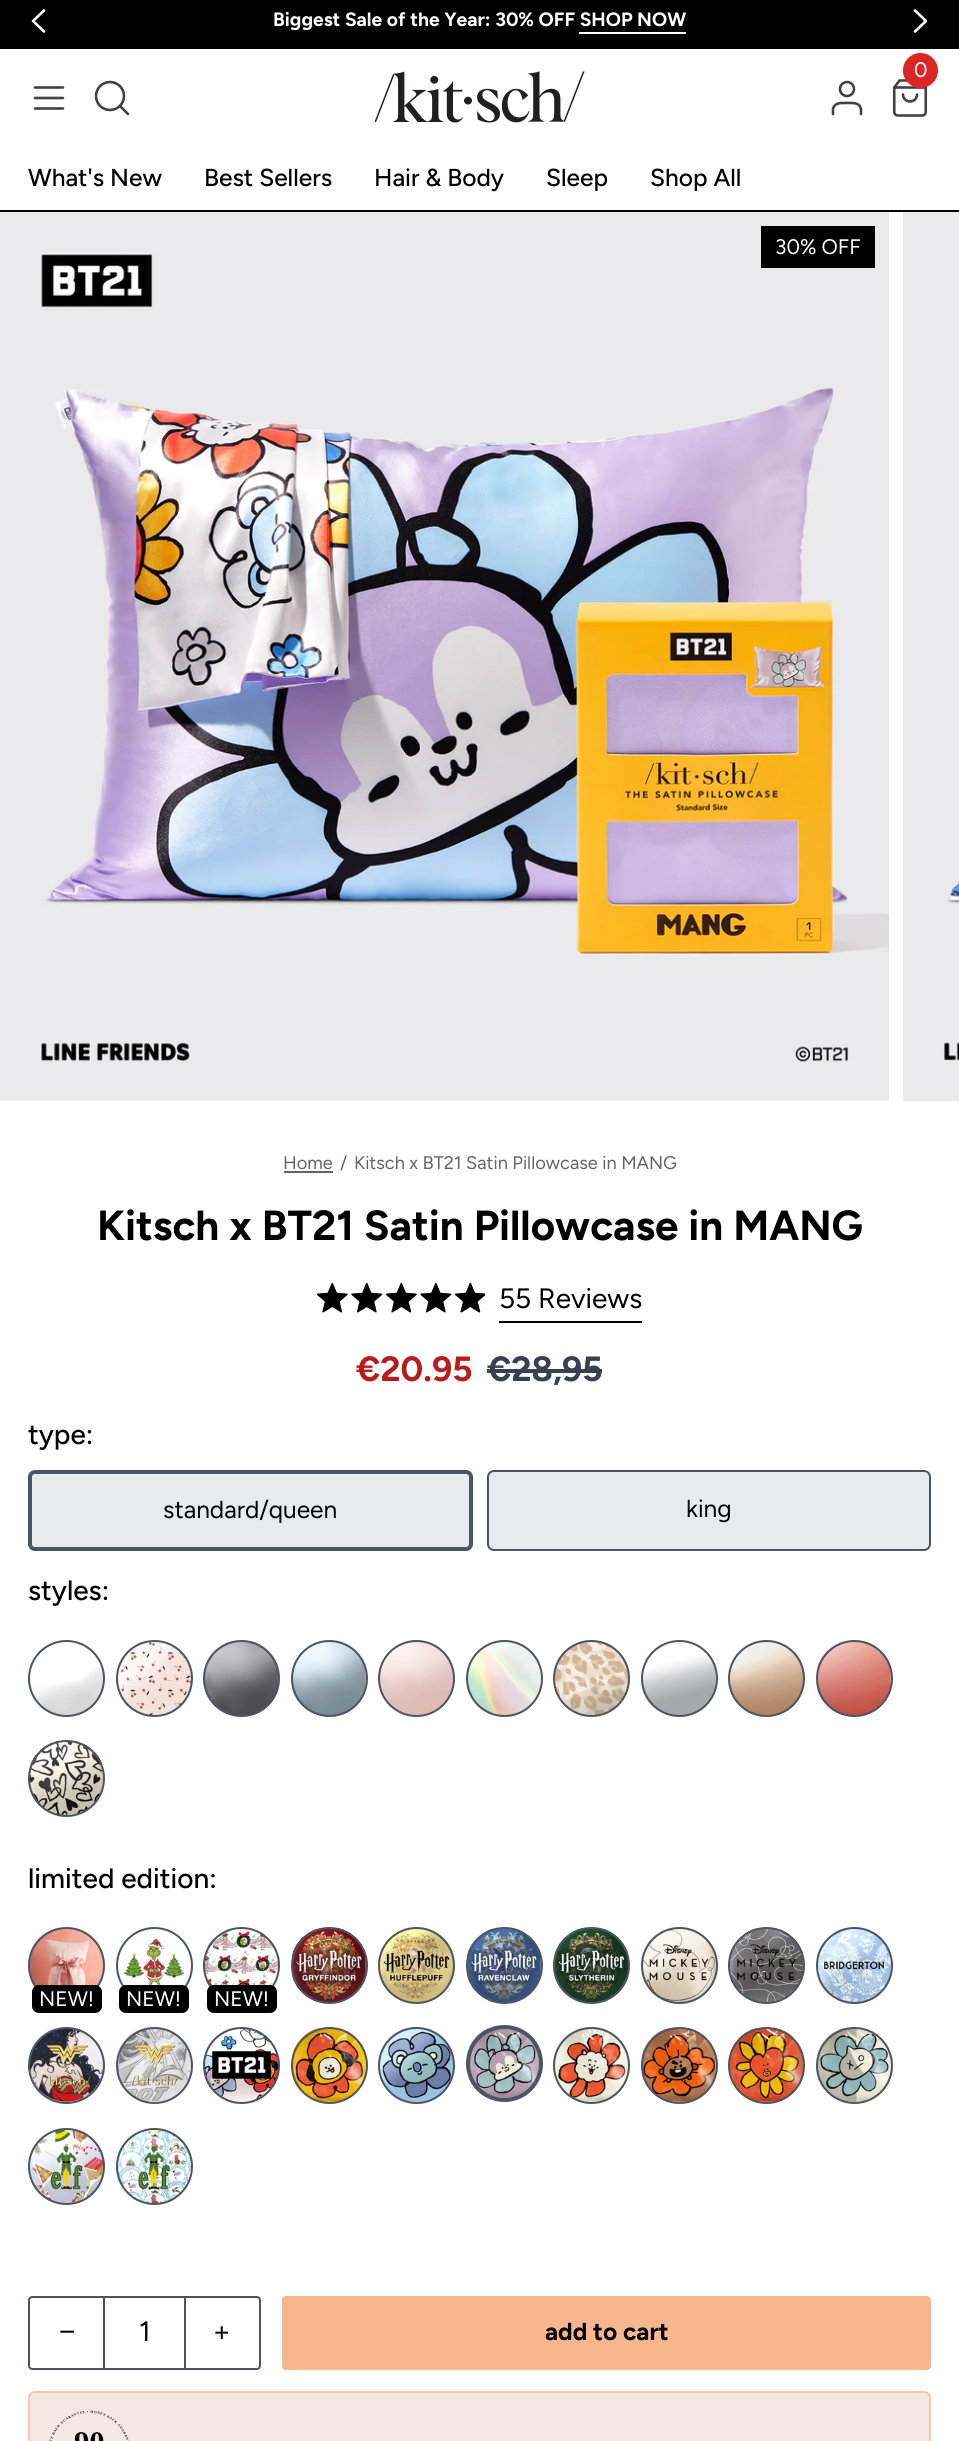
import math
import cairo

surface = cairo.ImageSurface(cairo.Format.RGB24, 959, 2441)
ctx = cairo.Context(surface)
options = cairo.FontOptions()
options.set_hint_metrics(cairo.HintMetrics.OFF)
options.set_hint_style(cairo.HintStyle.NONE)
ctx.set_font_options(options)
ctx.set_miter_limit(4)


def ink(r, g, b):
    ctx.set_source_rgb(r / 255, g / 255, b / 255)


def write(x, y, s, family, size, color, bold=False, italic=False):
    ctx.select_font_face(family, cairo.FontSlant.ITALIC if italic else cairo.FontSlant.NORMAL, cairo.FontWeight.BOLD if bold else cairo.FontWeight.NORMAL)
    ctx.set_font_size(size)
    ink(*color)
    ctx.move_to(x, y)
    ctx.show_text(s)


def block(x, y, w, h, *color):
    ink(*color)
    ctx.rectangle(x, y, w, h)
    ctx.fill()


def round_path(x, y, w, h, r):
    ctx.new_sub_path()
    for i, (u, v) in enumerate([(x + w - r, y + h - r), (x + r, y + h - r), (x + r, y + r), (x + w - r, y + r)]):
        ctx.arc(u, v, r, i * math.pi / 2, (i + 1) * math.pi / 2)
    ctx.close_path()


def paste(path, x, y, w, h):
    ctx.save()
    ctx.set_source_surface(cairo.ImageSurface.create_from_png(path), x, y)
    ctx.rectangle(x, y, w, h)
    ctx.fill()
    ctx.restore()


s1 = dict(family="Figtree", size=19.25, color=(255, 255, 255), bold=True)
s2 = dict(family="Figtree", size=21, color=(255, 255, 255))
s3 = dict(family="Figtree Medium", size=24.5, color=(0, 0, 0))
s4 = dict(family="Figtree", size=18.25, color=(100, 100, 100))
s5 = dict(family="Figtree", size=42, color=(0, 0, 0), bold=True)
s6 = dict(family="Figtree", size=28, color=(0, 0, 0))
s7 = dict(family="Figtree", size=35, color=(185, 28, 28), bold=True)
s8 = dict(family="Figtree", size=35, color=(55, 65, 81), bold=True)
s9 = dict(family="Figtree Medium", size=28, color=(0, 0, 0))
s10 = dict(family="Figtree", size=24.5, color=(0, 0, 0))
s11 = dict(family="Liberation Sans", size=28, color=(0, 0, 0))
s12 = dict(family="Figtree", size=24.5, color=(0, 0, 0), bold=True)

ink(255, 255, 255)
ctx.paint()
block(0, 0, 959, 49, 0, 0, 0)
ctx.new_path()
ctx.move_to(44, 31.5)
ctx.line_to(33, 21)
ctx.line_to(44, 10.5)
ink(255, 255, 255)
ctx.set_line_width(2.6)
ctx.set_line_cap(cairo.LineCap.ROUND)
ctx.set_line_join(cairo.LineJoin.ROUND)
ctx.stroke()
write(273, 26, "Biggest Sale of the Year: 30% OFF SHOP NOW", **s1)
block(579, 32, 107, 2, 255, 255, 255)
ctx.new_path()
ctx.move_to(915, 31.5)
ctx.line_to(926, 21)
ctx.line_to(915, 10.5)
ctx.stroke()
block(0, 210, 959, 2, 0, 0, 0)
ctx.new_path()
ctx.move_to(35, 87.5)
ctx.line_to(63, 87.5)
ctx.move_to(35, 98)
ctx.line_to(63, 98)
ctx.move_to(35, 108.5)
ctx.line_to(63, 108.5)
ink(66, 66, 66)
ctx.stroke()
ctx.arc(110, 96, 14, 0, 2 * math.pi)
ctx.set_line_cap(cairo.LineCap.BUTT)
ctx.set_line_join(cairo.LineJoin.MITER)
ctx.stroke()
ctx.new_path()
ctx.move_to(128, 114)
ctx.line_to(120, 106)
ctx.set_line_cap(cairo.LineCap.ROUND)
ctx.set_line_join(cairo.LineJoin.ROUND)
ctx.stroke()
paste("pic1.png", 375, 71, 210, 52)
paste("pic2.png", 892, 79, 36, 38)
ink(220, 38, 38)
ctx.arc(920.5, 70.5, 17.5, 0, 2 * math.pi)
ctx.fill()
write(914, 77, "0", **s2)
ctx.new_path()
ctx.move_to(861, 114)
ctx.line_to(861, 109)
ctx.curve_to(859.5, 102, 852, 103, 847, 103)
ctx.curve_to(842, 103, 834.5, 102, 833, 109)
ctx.line_to(833, 114)
ink(66, 66, 66)
ctx.stroke()
ctx.arc(847, 89, 7, 0, 2 * math.pi)
ctx.set_line_cap(cairo.LineCap.BUTT)
ctx.set_line_join(cairo.LineJoin.MITER)
ctx.stroke()
write(28, 186, "What's New", **s3)
write(204, 186, "Best Sellers", **s3)
write(374, 186, "Hair & Body", **s3)
write(546, 186, "Sleep", **s3)
write(650, 186, "Shop All", **s3)
paste("pic3.png", 0, 212, 889, 889)
block(761, 226, 114, 42, 0, 0, 0)
write(775, 254, "30% OFF", **s2)
paste("pic4.png", 903, 212, 56, 889)
write(283, 1169, "Home", **s4)
block(284, 1171, 49, 2, 100, 100, 100)
write(340, 1169, "/", **s4)
write(354, 1169, "Kitsch x BT21 Satin Pillowcase in MANG", **s4)
write(97, 1240, "Kitsch x BT21 Satin Pillowcase in MANG", **s5)
paste("pic5.png", 317, 1283, 169, 30)
paste("pic6.png", 317, 1283, 168, 30)
block(499, 1321, 143, 2, 0, 0, 0)
write(499, 1308, "55 Reviews", **s6)
write(356, 1381, "€20.95", **s7)
write(487, 1381, "€28,95", **s8)
block(487, 1369, 115, 4, 55, 65, 81)
write(28, 1444, "type:", **s9)
ink(232, 234, 236)
round_path(30, 1472, 441, 77, 5)
ctx.fill_preserve()
ink(75, 85, 99)
ctx.set_line_width(4)
ctx.stroke()
write(163, 1518, "standard/queen", **s10)
ink(232, 234, 236)
round_path(488, 1471, 442, 79, 6)
ctx.fill_preserve()
ink(75, 85, 99)
ctx.set_line_width(2)
ctx.stroke()
write(686, 1517, "king", **s10)
write(28, 1600, "styles:", **s9)
paste("pic7.png", 30, 1665, 74, 50)
ctx.arc(66.5, 1678.5, 37.5, 0, 2 * math.pi)
ink(75, 85, 99)
ctx.stroke()
paste("pic8.png", 117, 1641, 74, 74)
ctx.arc(154.5, 1678.5, 37.5, 0, 2 * math.pi)
ctx.stroke()
paste("pic9.png", 204, 1641, 75, 74)
ctx.arc(241.5, 1678.5, 37.5, 0, 2 * math.pi)
ctx.stroke()
paste("pic10.png", 292, 1641, 74, 74)
ctx.arc(329.5, 1678.5, 37.5, 0, 2 * math.pi)
ctx.stroke()
paste("pic11.png", 379, 1641, 75, 74)
ctx.arc(416.5, 1678.5, 37.5, 0, 2 * math.pi)
ctx.stroke()
paste("pic12.png", 467, 1641, 74, 74)
ctx.arc(504.5, 1678.5, 37.5, 0, 2 * math.pi)
ctx.stroke()
paste("pic13.png", 554, 1641, 75, 74)
ctx.arc(591.5, 1678.5, 37.5, 0, 2 * math.pi)
ctx.stroke()
paste("pic14.png", 642, 1654, 74, 61)
ctx.arc(679.5, 1678.5, 37.5, 0, 2 * math.pi)
ctx.stroke()
paste("pic15.png", 729, 1641, 75, 74)
ctx.arc(766.5, 1678.5, 37.5, 0, 2 * math.pi)
ctx.stroke()
paste("pic16.png", 817, 1641, 74, 74)
ctx.arc(854.5, 1678.5, 37.5, 0, 2 * math.pi)
ctx.stroke()
paste("pic17.png", 29, 1741, 75, 74)
ctx.arc(66.5, 1778.5, 37.5, 0, 2 * math.pi)
ctx.stroke()
write(28, 1888, "limited edition:", **s9)
paste("pic18.png", 29, 1928, 75, 59)
ctx.arc(66.5, 1965.5, 37.5, 0, 2 * math.pi)
ink(75, 85, 99)
ctx.stroke()
ink(0, 0, 0)
round_path(32, 1985, 70, 28, 7)
ctx.fill()
write(39, 2006, "NEW!", **s2)
paste("pic19.png", 123, 1938, 65, 49)
ctx.arc(154.5, 1965.5, 37.5, 0, 2 * math.pi)
ink(75, 85, 99)
ctx.stroke()
ink(0, 0, 0)
round_path(119, 1985, 70, 28, 7)
ctx.fill()
write(126, 2006, "NEW!", **s2)
paste("pic20.png", 204, 1928, 75, 59)
ctx.arc(241.5, 1965.5, 37.5, 0, 2 * math.pi)
ink(75, 85, 99)
ctx.stroke()
ink(0, 0, 0)
round_path(207, 1985, 70, 28, 7)
ctx.fill()
write(214, 2006, "NEW!", **s2)
paste("pic21.png", 292, 1928, 74, 74)
ctx.arc(329.5, 1965.5, 37.5, 0, 2 * math.pi)
ink(75, 85, 99)
ctx.stroke()
paste("pic22.png", 379, 1928, 75, 74)
ctx.arc(416.5, 1965.5, 37.5, 0, 2 * math.pi)
ctx.stroke()
paste("pic23.png", 467, 1928, 74, 74)
ctx.arc(504.5, 1965.5, 37.5, 0, 2 * math.pi)
ctx.stroke()
paste("pic24.png", 554, 1928, 75, 74)
ctx.arc(591.5, 1965.5, 37.5, 0, 2 * math.pi)
ctx.stroke()
paste("pic25.png", 642, 1928, 74, 74)
ctx.arc(679.5, 1965.5, 37.5, 0, 2 * math.pi)
ctx.stroke()
paste("pic26.png", 729, 1928, 75, 74)
ctx.arc(766.5, 1965.5, 37.5, 0, 2 * math.pi)
ctx.stroke()
paste("pic27.png", 817, 1928, 74, 74)
ctx.arc(854.5, 1965.5, 37.5, 0, 2 * math.pi)
ctx.stroke()
paste("pic28.png", 29, 2028, 75, 74)
ctx.arc(66.5, 2065.5, 37.5, 0, 2 * math.pi)
ctx.stroke()
paste("pic29.png", 117, 2028, 74, 74)
ctx.arc(154.5, 2065.5, 37.5, 0, 2 * math.pi)
ctx.stroke()
paste("pic30.png", 204, 2028, 75, 74)
ctx.arc(241.5, 2065.5, 37.5, 0, 2 * math.pi)
ctx.stroke()
paste("pic31.png", 292, 2028, 74, 74)
ctx.arc(329.5, 2065.5, 37.5, 0, 2 * math.pi)
ctx.stroke()
paste("pic32.png", 379, 2028, 75, 74)
ctx.arc(416.5, 2065.5, 37.5, 0, 2 * math.pi)
ctx.stroke()
paste("pic33.png", 469, 2028, 70, 71)
ctx.arc(504.5, 2063.5, 36.5, 0, 2 * math.pi)
ctx.set_line_width(4)
ctx.stroke()
paste("pic34.png", 554, 2028, 75, 74)
ctx.arc(591.5, 2065.5, 37.5, 0, 2 * math.pi)
ctx.set_line_width(2)
ctx.stroke()
paste("pic35.png", 642, 2028, 74, 74)
ctx.arc(679.5, 2065.5, 37.5, 0, 2 * math.pi)
ctx.stroke()
paste("pic36.png", 729, 2028, 75, 74)
ctx.arc(766.5, 2065.5, 37.5, 0, 2 * math.pi)
ctx.stroke()
paste("pic37.png", 817, 2028, 74, 74)
ctx.arc(854.5, 2065.5, 37.5, 0, 2 * math.pi)
ctx.stroke()
paste("pic38.png", 29, 2129, 75, 75)
ctx.arc(66.5, 2166.5, 37.5, 0, 2 * math.pi)
ctx.stroke()
paste("pic39.png", 117, 2129, 74, 75)
ctx.arc(154.5, 2166.5, 37.5, 0, 2 * math.pi)
ctx.stroke()
ctx.new_path()
ctx.move_to(32, 2297)
ctx.line_to(104, 2297)
ctx.line_to(104, 2369)
ctx.line_to(32, 2369)
ctx.curve_to(30.5, 2369, 29, 2367.5, 29, 2366)
ctx.line_to(29, 2300)
ctx.curve_to(29, 2298.5, 30.5, 2297, 32, 2297)
ctx.close_path()
ctx.stroke()
write(59, 2341, "−", **s11)
block(105, 2296, 79, 2, 75, 85, 99)
block(105, 2368, 79, 2, 75, 85, 99)
write(139, 2341, "1", **s6)
ctx.new_path()
ctx.move_to(185, 2297)
ctx.line_to(257, 2297)
ctx.curve_to(258.5, 2297, 260, 2298.5, 260, 2300)
ctx.line_to(260, 2366)
ctx.curve_to(260, 2367.5, 258.5, 2369, 257, 2369)
ctx.line_to(185, 2369)
ctx.close_path()
ink(75, 85, 99)
ctx.stroke()
write(213, 2341, "+", **s6)
ink(248, 182, 143)
round_path(283, 2297, 647, 72, 3)
ctx.fill_preserve()
ctx.stroke()
write(545, 2340, "add to cart", **s12)
ink(242, 232, 228)
round_path(29, 2392, 901, 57, 6)
ctx.fill_preserve()
ink(251, 196, 175)
ctx.stroke()
paste("pic40.png", 49, 2410, 80, 31)
surface.write_to_png("screenshot.png")
